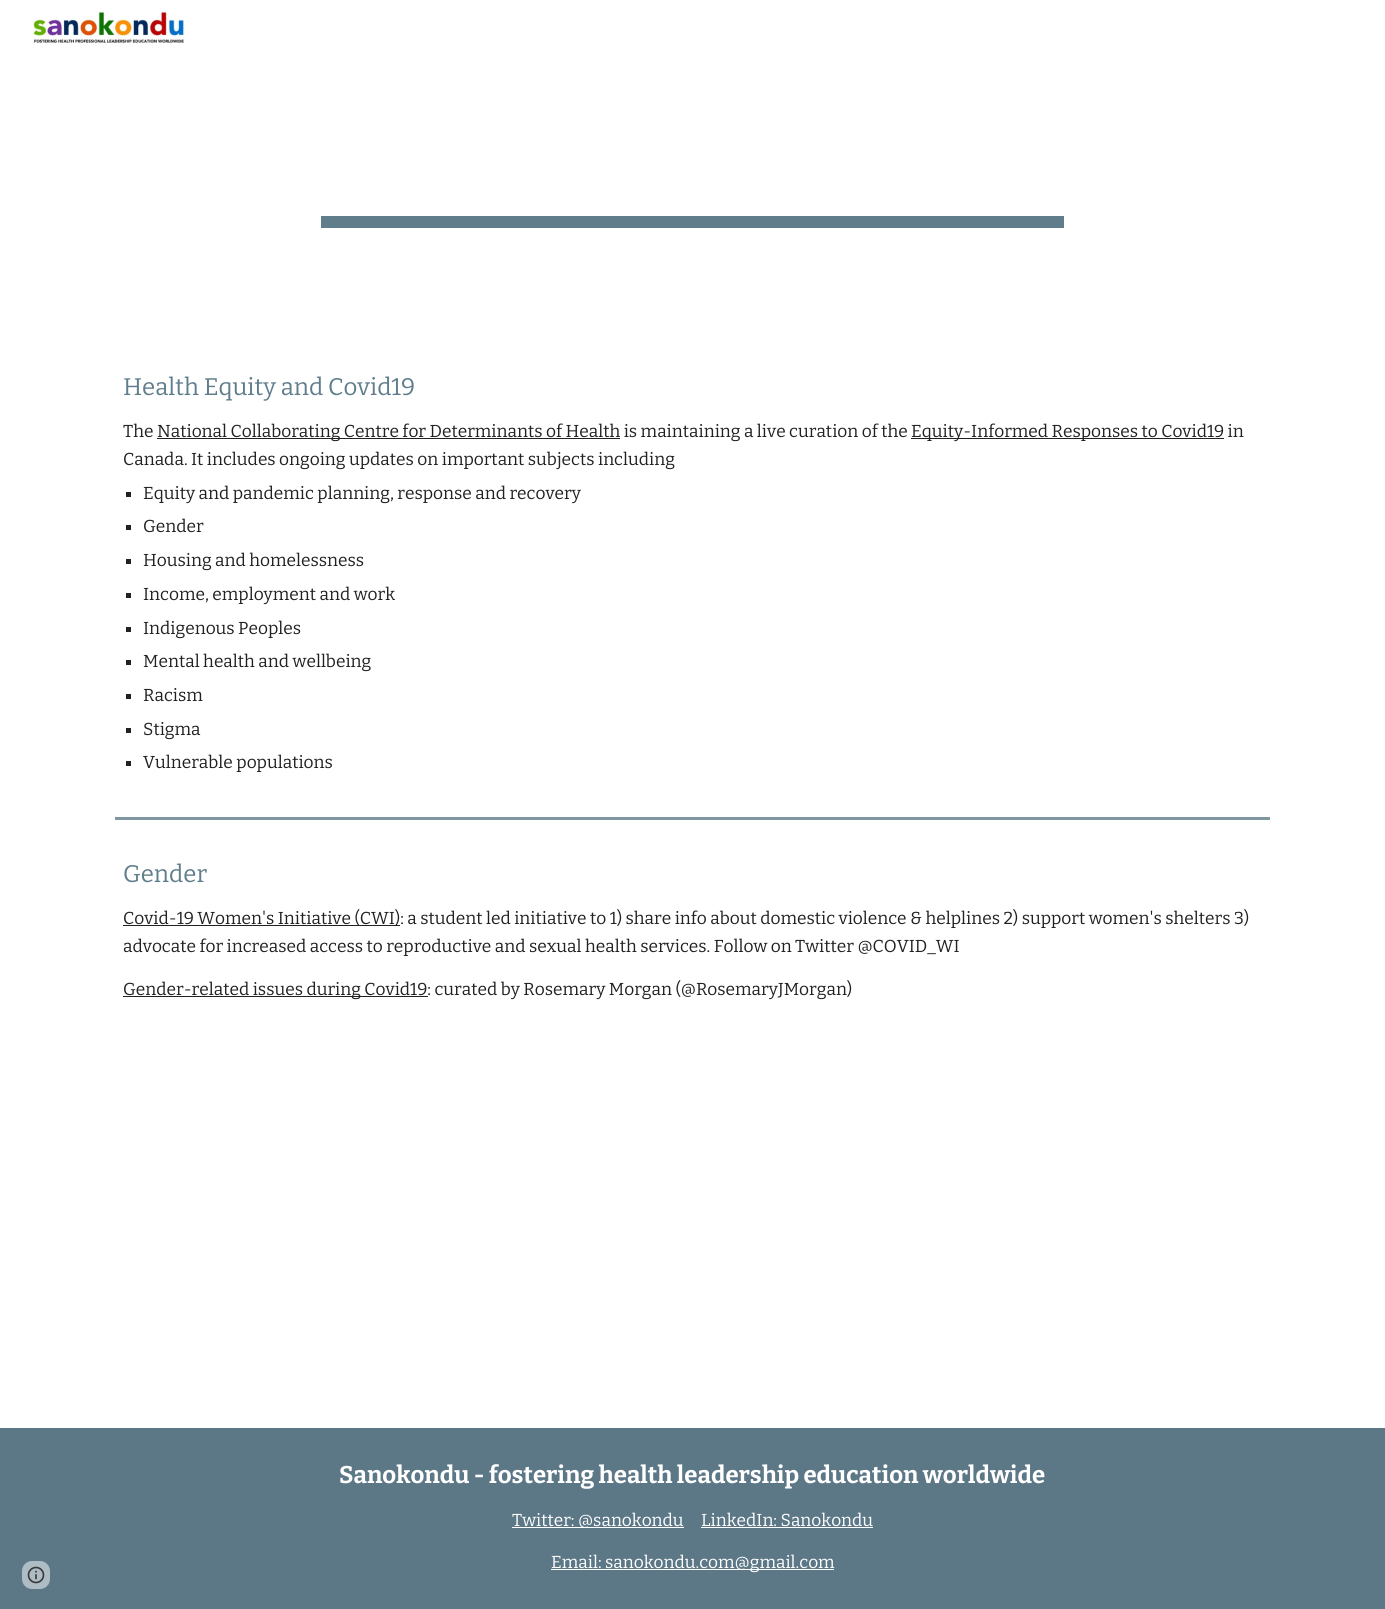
import math
import cairo

surface = cairo.ImageSurface(cairo.Format.RGB24, 1385, 1609)
ctx = cairo.Context(surface)
options = cairo.FontOptions()
options.set_hint_metrics(cairo.HintMetrics.OFF)
options.set_hint_style(cairo.HintStyle.NONE)
ctx.set_font_options(options)
ctx.set_miter_limit(4)


def ink(r, g, b):
    ctx.set_source_rgb(r / 255, g / 255, b / 255)


def write(x, y, s, family, size, color, bold=False, italic=False):
    ctx.select_font_face(family, cairo.FontSlant.ITALIC if italic else cairo.FontSlant.NORMAL, cairo.FontWeight.BOLD if bold else cairo.FontWeight.NORMAL)
    ctx.set_font_size(size)
    ink(*color)
    ctx.move_to(x, y)
    ctx.show_text(s)


def block(x, y, w, h, *color):
    ink(*color)
    ctx.rectangle(x, y, w, h)
    ctx.fill()


def round_path(x, y, w, h, r):
    ctx.new_sub_path()
    for i, (u, v) in enumerate([(x + w - r, y + h - r), (x + r, y + h - r), (x + r, y + r), (x + w - r, y + r)]):
        ctx.arc(u, v, r, i * math.pi / 2, (i + 1) * math.pi / 2)
    ctx.close_path()


def paste(path, x, y, w, h):
    ctx.save()
    ctx.set_source_surface(cairo.ImageSurface.create_from_png(path), x, y)
    ctx.rectangle(x, y, w, h)
    ctx.fill()
    ctx.restore()


s1 = dict(family="Bitter", size=24, color=(95, 125, 140))
s2 = dict(family="Bitter", size=17.33, color=(33, 33, 33))
s3 = dict(family="Bitter", size=24, color=(255, 255, 255), bold=True)
s4 = dict(family="Bitter", size=17.33, color=(255, 255, 255))

ink(255, 255, 255)
ctx.paint()
paste("pic1.png", 32, 11, 153, 32)
block(321, 216, 743, 12, 96, 125, 139)
write(123, 395, "Health Equity and Covid19", **s1)
write(123, 437, "The", **s2)
block(157, 438, 463, 1, 33, 33, 33)
write(157, 437, "National Collaborating Centre for Determinants of Health is maintaining a live curation of the", **s2)
block(911, 438, 313, 1, 33, 33, 33)
write(911, 437, "Equity-Informed Responses to Covid19 in", **s2)
write(123, 465, "Canada. It includes ongoing updates on important subjects including", **s2)
block(126, 492, 5, 5, 33, 33, 33)
write(143, 499, "Equity and pandemic planning, response and recovery", **s2)
block(126, 525, 5, 5, 33, 33, 33)
write(143, 532, "Gender", **s2)
block(126, 559, 5, 5, 33, 33, 33)
write(143, 566, "Housing and homelessness", **s2)
block(126, 593, 5, 5, 33, 33, 33)
write(143, 600, "Income, employment and work", **s2)
block(126, 627, 5, 5, 33, 33, 33)
write(143, 634, "Indigenous Peoples", **s2)
block(126, 660, 5, 5, 33, 33, 33)
write(143, 667, "Mental health and wellbeing", **s2)
block(126, 694, 5, 5, 33, 33, 33)
write(143, 701, "Racism", **s2)
block(126, 728, 5, 5, 33, 33, 33)
write(143, 735, "Stigma", **s2)
block(126, 761, 5, 5, 33, 33, 33)
write(143, 768, "Vulnerable populations", **s2)
block(115, 817, 1155, 3, 128, 151, 162)
write(123, 882, "Gender", **s1)
block(123, 925, 277, 1, 33, 33, 33)
write(123, 924, "Covid-19 Women's Initiative (CWI): a student led initiative to 1) share info about domestic violence & helplines 2) support women's shelters 3)", **s2)
write(123, 952, "advocate for increased access to reproductive and sexual health services. Follow on Twitter @COVID_WI", **s2)
block(123, 996, 305, 1, 33, 33, 33)
write(123, 995, "Gender-related issues during Covid19: curated by Rosemary Morgan (@RosemaryJMorgan)", **s2)
block(0, 1428, 1385, 181, 92, 120, 135)
ink(174, 188, 195)
round_path(22, 1561, 28, 28, 10)
ctx.fill()
paste("pic2.png", 27, 1566, 18, 18)
write(339, 1483, "Sanokondu - fostering health leadership education worldwide", **s3)
block(512, 1527, 172, 1, 255, 255, 255)
write(512, 1526, "Twitter: @sanokondu", **s4)
write(701, 1526, "LinkedIn: Sanokondu", **s4)
block(701, 1527, 172, 1, 255, 255, 255)
block(551, 1569, 283, 1, 255, 255, 255)
write(551, 1568, "Email: sanokondu.com@gmail.com", **s4)
surface.write_to_png("screenshot.png")
